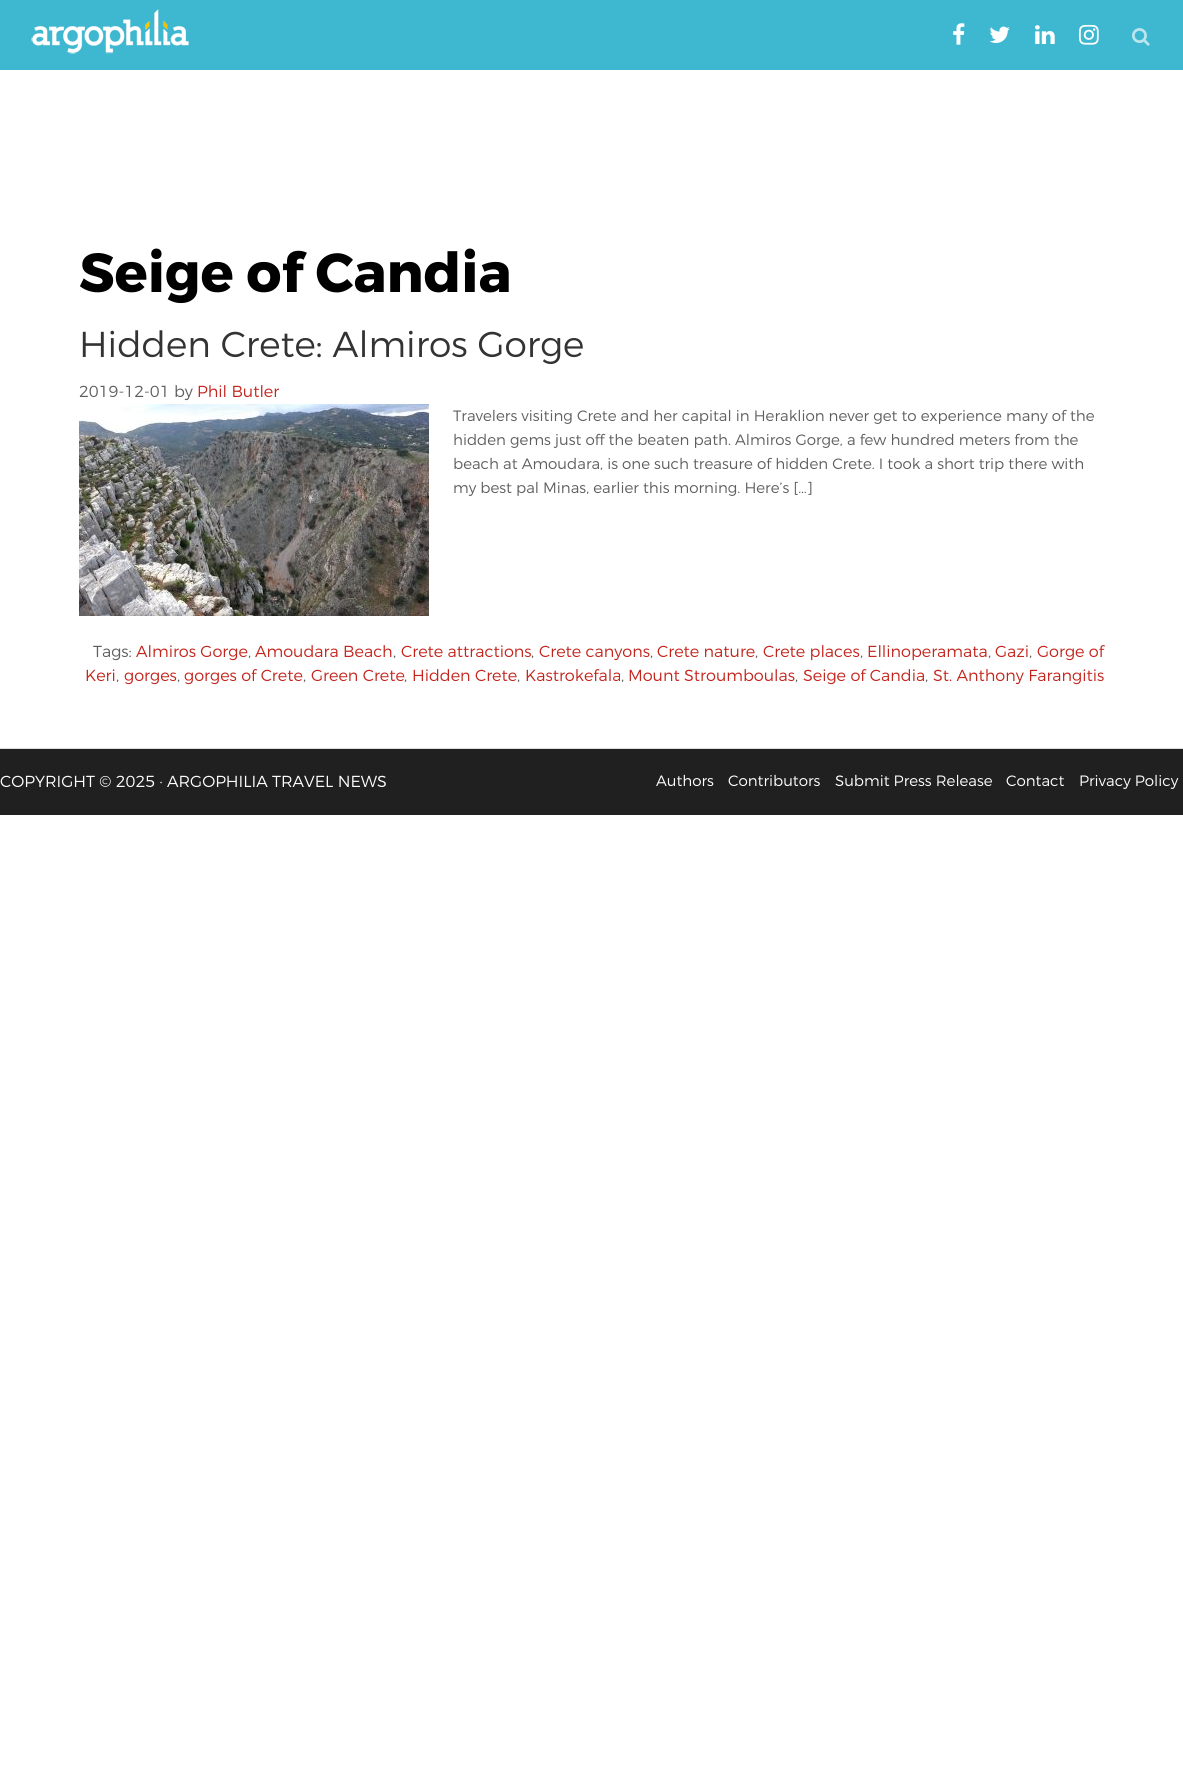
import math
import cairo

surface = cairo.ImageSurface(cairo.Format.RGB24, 1183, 1788)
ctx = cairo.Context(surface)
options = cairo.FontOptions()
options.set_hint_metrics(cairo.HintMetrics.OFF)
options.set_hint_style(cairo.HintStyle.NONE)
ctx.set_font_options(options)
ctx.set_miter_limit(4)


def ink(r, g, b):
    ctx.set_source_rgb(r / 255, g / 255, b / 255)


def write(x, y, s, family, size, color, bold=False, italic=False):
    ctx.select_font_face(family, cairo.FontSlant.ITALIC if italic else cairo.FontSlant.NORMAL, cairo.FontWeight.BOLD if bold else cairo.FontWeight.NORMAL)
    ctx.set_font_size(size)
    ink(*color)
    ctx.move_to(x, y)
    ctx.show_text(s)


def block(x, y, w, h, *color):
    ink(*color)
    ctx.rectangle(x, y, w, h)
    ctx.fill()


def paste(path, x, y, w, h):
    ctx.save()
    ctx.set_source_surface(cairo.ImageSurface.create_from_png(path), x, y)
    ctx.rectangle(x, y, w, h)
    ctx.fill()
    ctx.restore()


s1 = dict(family="Montserrat", size=55, color=(0, 0, 0), bold=True)
s2 = dict(family="Montserrat Light", size=36, color=(51, 51, 51))
s3 = dict(family="Montserrat Light", size=16, color=(94, 94, 94))
s4 = dict(family="Montserrat Light", size=16, color=(195, 37, 29))
s5 = dict(family="Montserrat Light", size=15, color=(94, 94, 94))
s6 = dict(family="Montserrat Light", size=16, color=(255, 255, 255))
s7 = dict(family="Montserrat Light", size=15, color=(255, 255, 255))

ink(255, 255, 255)
ctx.paint()
block(0, 0, 1183, 70, 62, 184, 208)
paste("pic1.png", 31, 9, 158, 45)
paste("pic2.png", 953, 23, 12, 22)
paste("pic3.png", 989, 26, 21, 17)
paste("pic4.png", 1035, 25, 20, 19)
paste("pic5.png", 1079, 24, 20, 21)
paste("pic6.png", 1132, 28, 18, 18)
write(79, 292, "Seige of Candia", **s1)
write(79, 357, "Hidden Crete: Almiros Gorge", **s2)
write(79, 397, "2019-12-01 by", **s3)
write(197, 397, "Phil Butler", **s4)
paste("pic7.png", 79, 404, 350, 212)
write(453, 421, "Travelers visiting Crete and her capital in Heraklion never get to experience many of the", **s5)
write(453, 445, "hidden gems just off the beaten path. Almiros Gorge, a few hundred meters from the", **s5)
write(453, 469, "beach at Amoudara, is one such treasure of hidden Crete. I took a short trip there with", **s5)
write(453, 493, "my best pal Minas, earlier this morning. Here’s […]", **s5)
write(93, 657, "Tags:", **s3)
write(136, 657, "Almiros Gorge", **s4)
write(248, 657, ",", **s3)
write(255, 657, "Amoudara Beach", **s4)
write(393, 657, ",", **s3)
write(401, 657, "Crete attractions", **s4)
write(531, 657, ",", **s3)
write(539, 657, "Crete canyons", **s4)
write(650, 657, ",", **s3)
write(657, 657, "Crete nature", **s4)
write(755, 657, ",", **s3)
write(763, 657, "Crete places", **s4)
write(860, 657, ",", **s3)
write(867, 657, "Ellinoperamata", **s4)
write(988, 657, ",", **s3)
write(995, 657, "Gazi", **s4)
write(1029, 657, ",", **s3)
write(1037, 657, "Gorge of", **s4)
write(85, 681, "Keri", **s4)
write(116, 681, ",", **s3)
write(124, 681, "gorges", **s4)
write(177, 681, ",", **s3)
write(184, 681, "gorges of Crete", **s4)
write(303, 681, ",", **s3)
write(311, 681, "Green Crete", **s4)
write(404, 681, ",", **s3)
write(412, 681, "Hidden Crete", **s4)
write(517, 681, ",", **s3)
write(525, 681, "Kastrokefala", **s4)
write(621, 681, ",", **s3)
write(628, 681, "Mount Stroumboulas", **s4)
write(795, 681, ",", **s3)
write(803, 681, "Seige of Candia", **s4)
write(925, 681, ",", **s3)
write(933, 681, "St. Anthony Farangitis", **s4)
block(0, 749, 1183, 66, 32, 32, 32)
block(0, 748, 1183, 1, 221, 221, 221)
write(0, 787, "COPYRIGHT © 2025 · ARGOPHILIA TRAVEL NEWS", **s6)
write(656, 786, "Authors", **s7)
write(728, 786, "Contributors", **s7)
write(835, 786, "Submit Press Release", **s7)
write(1006, 786, "Contact", **s7)
write(1079, 786, "Privacy Policy", **s7)
surface.write_to_png("screenshot.png")
